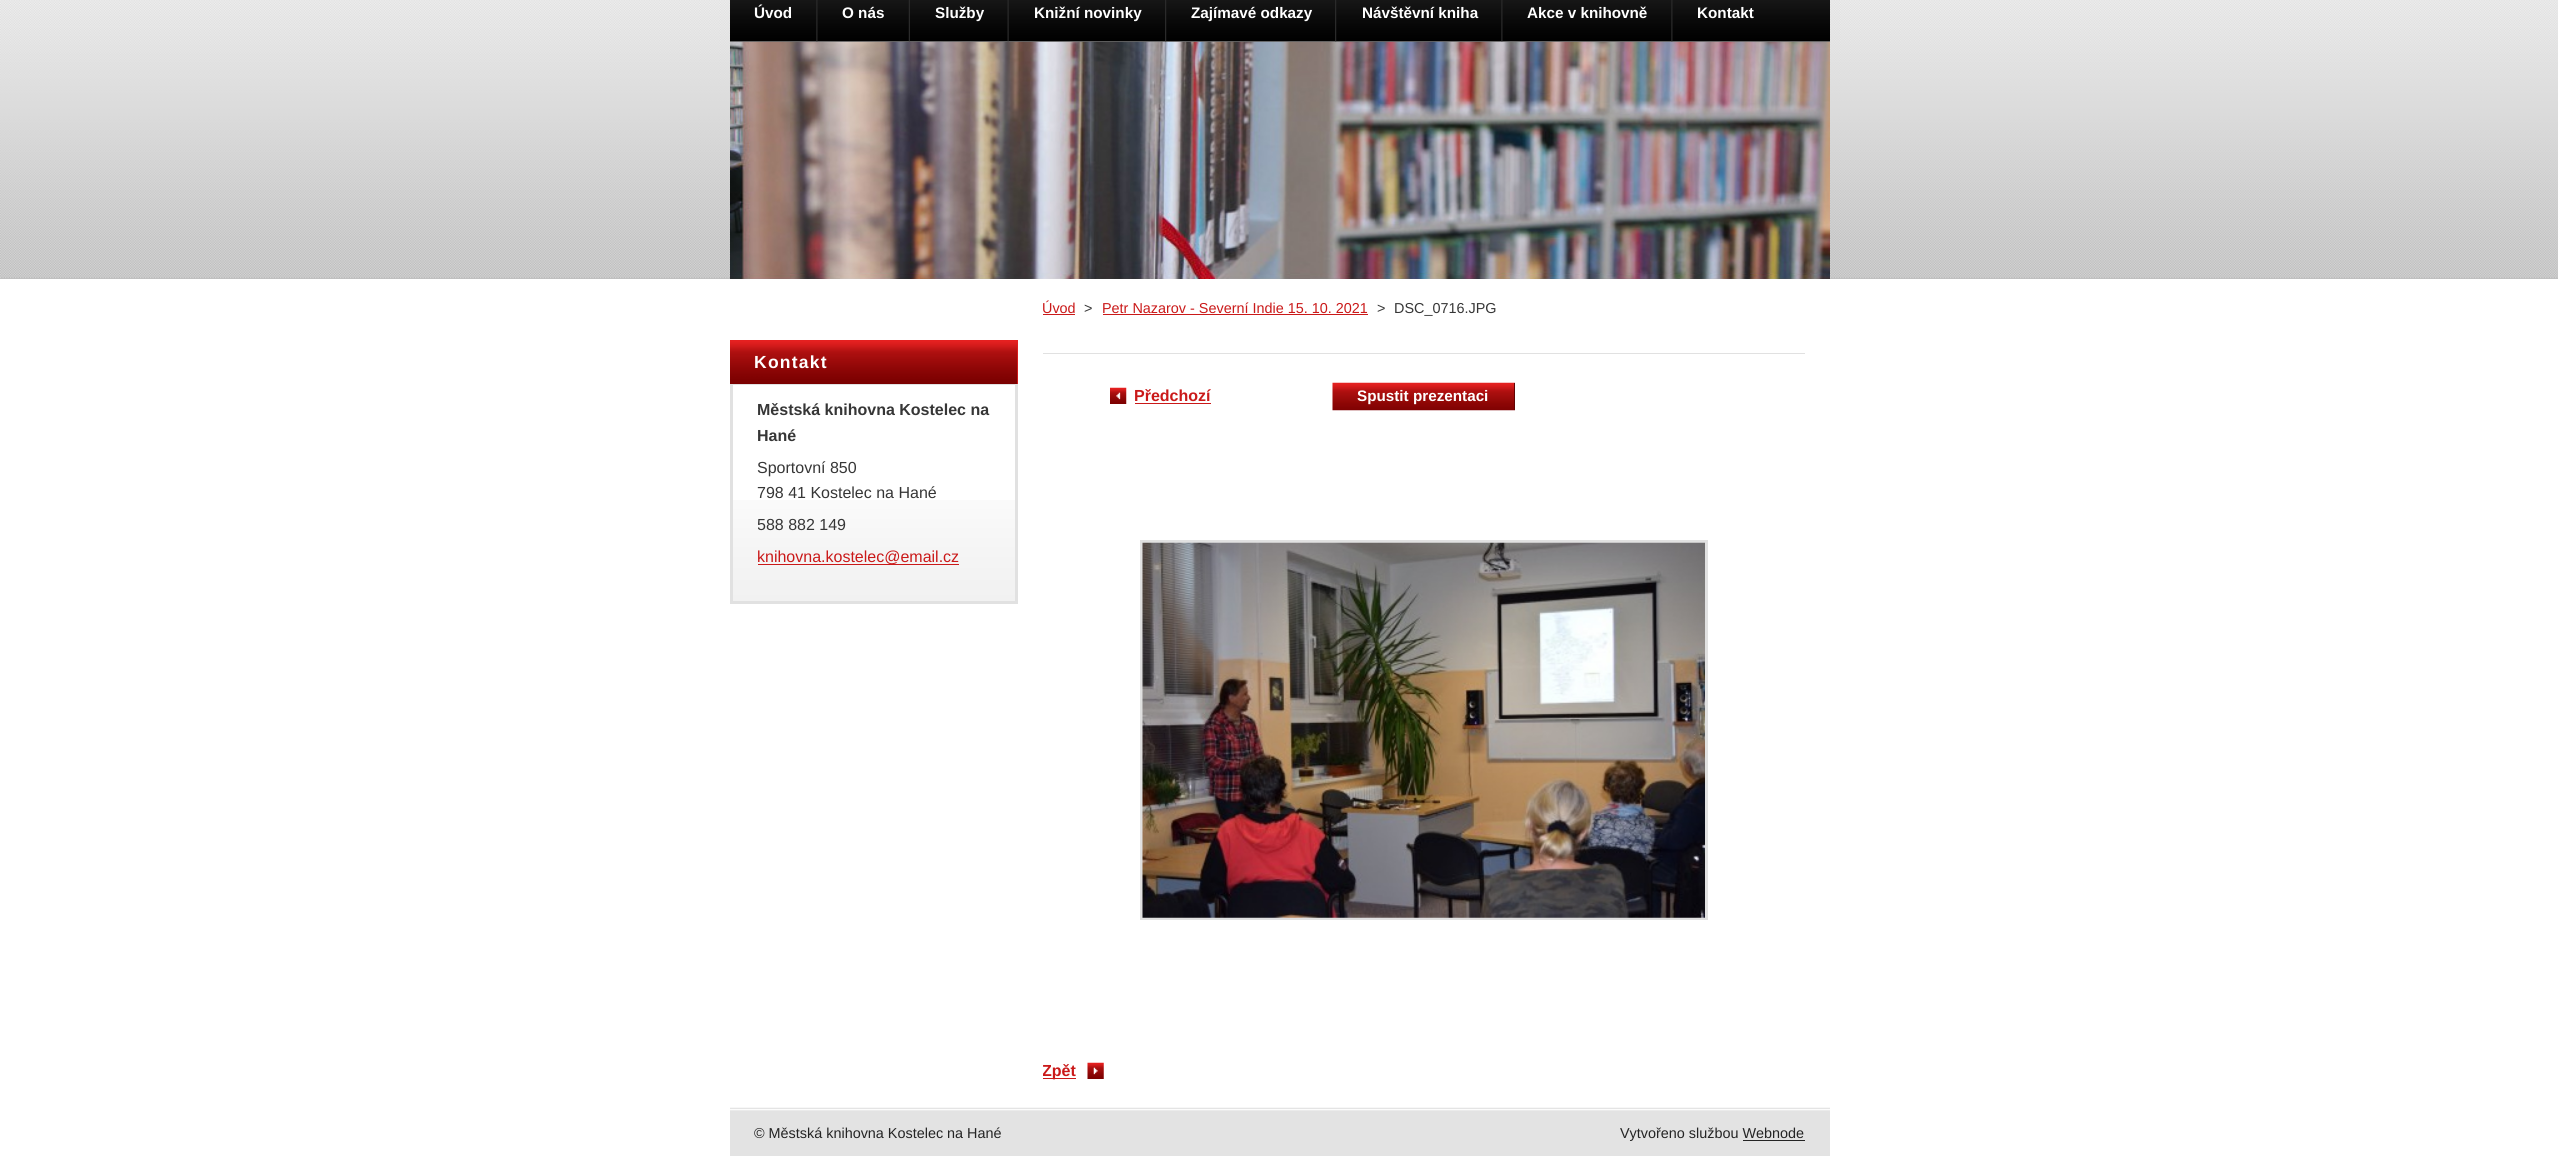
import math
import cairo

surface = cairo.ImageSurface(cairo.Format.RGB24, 2558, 1156)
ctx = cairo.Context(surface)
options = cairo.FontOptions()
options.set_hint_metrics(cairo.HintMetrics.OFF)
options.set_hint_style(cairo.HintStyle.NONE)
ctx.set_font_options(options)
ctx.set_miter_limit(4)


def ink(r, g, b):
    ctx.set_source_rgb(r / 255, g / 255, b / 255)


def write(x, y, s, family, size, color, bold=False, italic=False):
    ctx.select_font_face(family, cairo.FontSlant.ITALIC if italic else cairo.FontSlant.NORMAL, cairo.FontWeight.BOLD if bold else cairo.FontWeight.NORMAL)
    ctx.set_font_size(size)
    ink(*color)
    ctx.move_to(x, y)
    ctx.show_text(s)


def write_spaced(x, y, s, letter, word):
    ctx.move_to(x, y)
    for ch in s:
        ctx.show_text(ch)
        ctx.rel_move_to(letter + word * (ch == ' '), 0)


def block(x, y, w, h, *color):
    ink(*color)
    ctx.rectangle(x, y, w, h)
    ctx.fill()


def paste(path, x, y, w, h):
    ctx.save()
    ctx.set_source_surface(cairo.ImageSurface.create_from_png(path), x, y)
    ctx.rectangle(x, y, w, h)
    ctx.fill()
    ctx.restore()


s1 = dict(family="Liberation Sans", size=15.25, color=(255, 255, 255), bold=True)
s2 = dict(family="Liberation Sans", size=16, color=(54, 54, 54), bold=True)
s3 = dict(family="Liberation Sans", size=16, color=(54, 54, 54))
s4 = dict(family="Liberation Sans", size=16, color=(202, 25, 25))
s5 = dict(family="Liberation Sans", size=14.4, color=(202, 25, 25))
s6 = dict(family="Liberation Sans", size=14.4, color=(54, 54, 54))
s7 = dict(family="Liberation Sans", size=16, color=(202, 25, 25), bold=True)
s8 = dict(family="Liberation Sans", size=14.4, color=(36, 36, 36))

ink(255, 255, 255)
ctx.paint()
paste("pic1.png", 0, 0, 2558, 279)
paste("pic10.png", 730, 41, 1100, 238)
paste("pic2.png", 730, 0, 1100, 42)
paste("pic3.png", 816, 0, 2, 42)
write(754, 18, "Úvod", **s1)
paste("pic4.png", 908, 0, 2, 42)
write(842, 18, "O nás", **s1)
paste("pic5.png", 1007, 0, 2, 42)
write(935, 18, "Služby", **s1)
paste("pic6.png", 1165, 0, 2, 42)
write(1034, 18, "Knižní novinky", **s1)
paste("pic7.png", 1335, 0, 2, 42)
write(1191, 18, "Zajímavé odkazy", **s1)
paste("pic8.png", 1501, 0, 2, 42)
write(1362, 18, "Návštěvní kniha", **s1)
paste("pic9.png", 1671, 0, 2, 42)
write(1527, 18, "Akce v knihovně", **s1)
write(1697, 18, "Kontakt", **s1)
paste("pic11.png", 733, 500, 282, 101)
block(730, 340, 288, 44, 229, 32, 32)
paste("pic12.png", 730, 342, 288, 42)
block(730, 384, 288, 1, 225, 225, 225)
ctx.set_font_size(17.5)
ink(255, 255, 255)
write_spaced(754, 368, "Kontakt", 1.25, 0)
block(1015, 385, 3, 219, 225, 225, 225)
block(730, 601, 288, 3, 225, 225, 225)
block(730, 385, 3, 219, 225, 225, 225)
write(757, 415, "Městská knihovna Kostelec na", **s2)
write(757, 441, "Hané", **s2)
write(757, 473, "Sportovní 850", **s3)
write(757, 498, "798 41 Kostelec na Hané", **s3)
ctx.save()
ctx.rectangle(758, 385, 232, 191)
ctx.clip()
write(757, 530, "588 882 149", **s3)
ctx.restore()
block(758, 564, 201, 1, 202, 25, 25)
write(757, 562, "knihovna.kostelec@email.cz", **s4)
write(1042, 313, "Úvod", **s5)
block(1043, 314, 32, 1, 202, 25, 25)
write(1084, 313, ">", **s6)
write(1102, 313, "Petr Nazarov - Severní Indie 15. 10. 2021", **s5)
block(1103, 314, 265, 1, 202, 25, 25)
write(1377, 313, ">", **s6)
write(1394, 313, "DSC_0716.JPG", **s6)
block(1043, 353, 762, 1, 225, 225, 225)
paste("pic13.png", 1110, 387, 17, 17)
write(1134, 401, "Předchozí", **s7)
block(1135, 403, 76, 1, 202, 25, 25)
paste("pic14.png", 1332, 382, 183, 29)
write(1357, 401, "Spustit prezentaci", **s1)
block(1514, 383, 1, 27, 97, 3, 3)
ctx.rectangle(1141.5, 541.5, 565, 377)
ink(225, 225, 225)
ctx.set_line_width(3)
ctx.stroke()
paste("pic15.png", 1142, 542, 563, 376)
paste("pic16.png", 1087, 1062, 17, 17)
block(1043, 1078, 33, 1, 202, 25, 25)
ctx.save()
ctx.rectangle(1043, 366, 762, 714)
ctx.clip()
write(1042, 1076, "Zpět", **s7)
ctx.restore()
block(730, 1111, 1100, 45, 227, 227, 227)
paste("pic17.png", 730, 1107, 1100, 4)
write(754, 1138, "© Městská knihovna Kostelec na Hané", **s8)
write(1620, 1138, "Vytvořeno službou Webnode", **s8)
block(1743, 1140, 62, 1, 36, 36, 36)
surface.write_to_png("screenshot.png")
